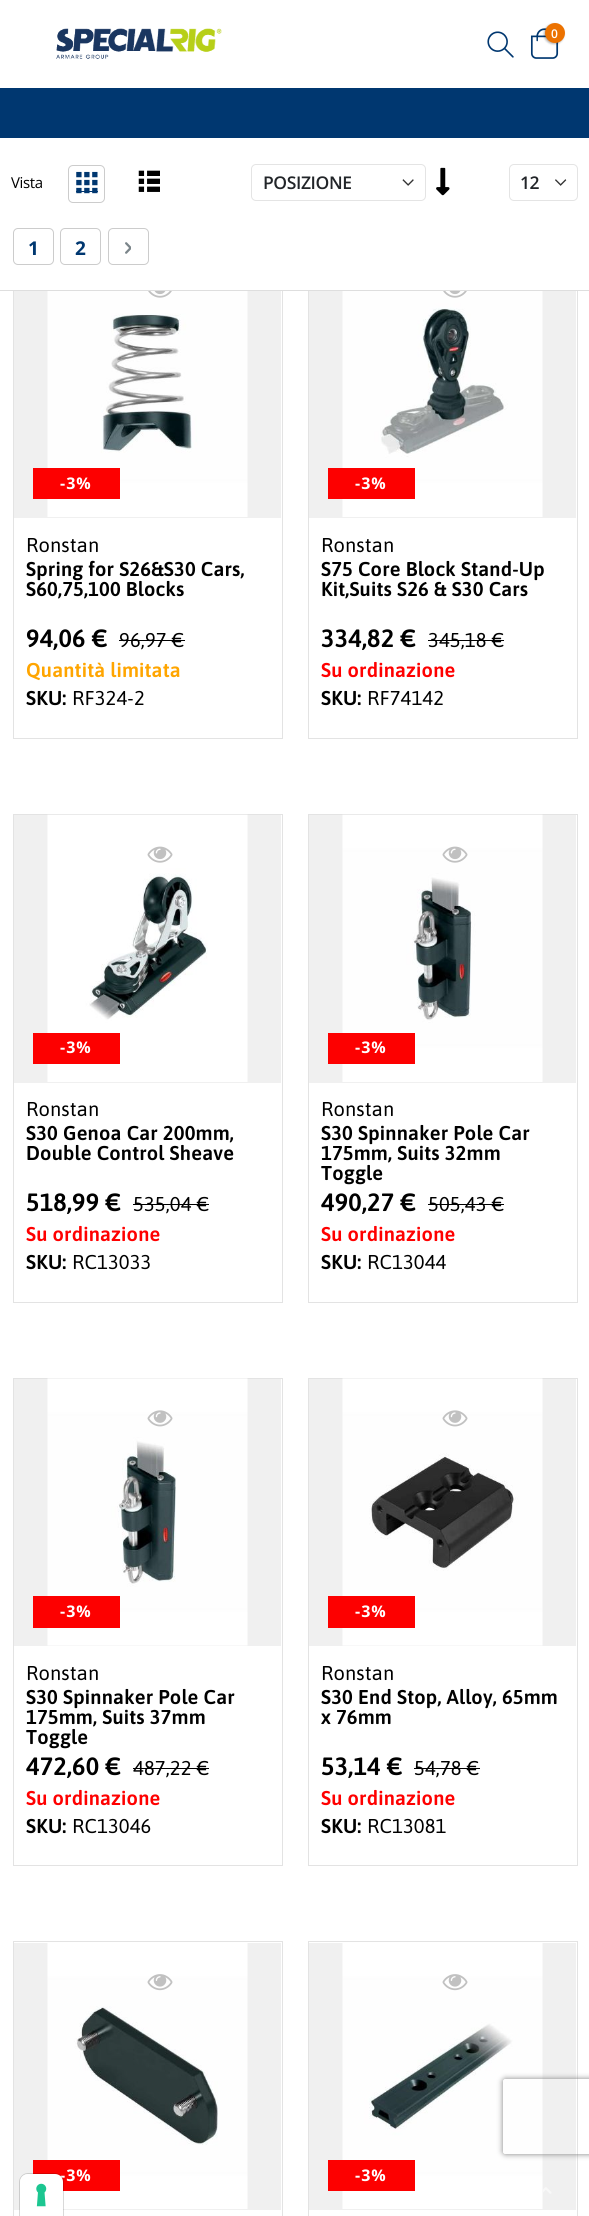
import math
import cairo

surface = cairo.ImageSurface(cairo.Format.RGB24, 589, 2216)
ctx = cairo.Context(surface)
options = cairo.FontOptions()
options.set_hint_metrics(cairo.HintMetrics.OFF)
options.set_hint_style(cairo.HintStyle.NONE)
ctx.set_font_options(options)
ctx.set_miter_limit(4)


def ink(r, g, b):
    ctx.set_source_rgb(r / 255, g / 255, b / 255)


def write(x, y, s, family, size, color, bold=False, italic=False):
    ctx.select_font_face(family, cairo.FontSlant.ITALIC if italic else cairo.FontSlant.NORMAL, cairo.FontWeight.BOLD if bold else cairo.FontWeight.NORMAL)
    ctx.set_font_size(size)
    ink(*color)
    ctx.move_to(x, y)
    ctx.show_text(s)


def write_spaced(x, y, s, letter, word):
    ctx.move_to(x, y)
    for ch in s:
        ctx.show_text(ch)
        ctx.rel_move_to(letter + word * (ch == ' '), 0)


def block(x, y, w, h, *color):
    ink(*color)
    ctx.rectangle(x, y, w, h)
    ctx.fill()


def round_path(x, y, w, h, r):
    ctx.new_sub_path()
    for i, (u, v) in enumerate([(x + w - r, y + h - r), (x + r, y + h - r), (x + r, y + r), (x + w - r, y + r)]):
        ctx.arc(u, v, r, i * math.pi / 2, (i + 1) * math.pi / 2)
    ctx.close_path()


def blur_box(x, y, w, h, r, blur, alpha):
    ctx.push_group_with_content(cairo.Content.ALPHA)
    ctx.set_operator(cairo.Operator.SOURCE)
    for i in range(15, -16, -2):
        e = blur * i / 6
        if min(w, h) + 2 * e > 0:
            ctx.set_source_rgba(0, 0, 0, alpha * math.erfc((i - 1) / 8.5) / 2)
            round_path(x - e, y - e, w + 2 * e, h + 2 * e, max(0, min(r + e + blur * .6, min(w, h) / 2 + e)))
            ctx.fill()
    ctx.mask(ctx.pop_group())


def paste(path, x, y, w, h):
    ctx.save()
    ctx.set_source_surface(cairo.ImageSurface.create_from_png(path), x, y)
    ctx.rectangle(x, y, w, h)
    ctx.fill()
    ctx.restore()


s1 = dict(family="Open Sans SemiBold", size=12, color=(255, 255, 255))
s2 = dict(family="Open Sans", size=19, color=(0, 55, 112), bold=True)

ink(255, 255, 255)
ctx.paint()
block(0, 88, 589, 50, 0, 55, 112)
paste("pic1.png", 56, 28, 166, 31)
paste("pic2.png", 487, 31, 27, 27)
paste("pic3.png", 530, 28, 29, 31)
ink(0, 0, 0)
blur_box(544, 24, 20, 20, 10, 1, 0.3)
ink(236, 114, 0)
ctx.arc(555, 33, 10, 0, 2 * math.pi)
ctx.fill()
write(551, 38, "0", **s1)
ctx.rectangle(13.5, 249.5, 269, 489)
ink(227, 227, 227)
ctx.set_line_width(1)
ctx.stroke()
ctx.rectangle(308.5, 249.5, 269, 489)
ctx.stroke()
block(13, 249, 565, 41, 255, 255, 255)
block(0, 290, 589, 1, 222, 222, 222)
ctx.select_font_face("Open Sans")
ctx.set_font_size(15)
ink(0, 0, 0)
write_spaced(11, 188, "Vista", -0.4, 0)
round_path(68.5, 165.5, 36, 37, 4.5)
ink(204, 204, 204)
ctx.stroke()
block(76, 191, 22, 1, 0, 55, 112)
paste("pic4.png", 76, 171, 22, 23)
paste("pic5.png", 138, 170, 22, 22)
paste("pic6.png", 402, 179, 12, 7)
round_path(251.5, 164.5, 174, 36, 4.5)
ink(228, 228, 228)
ctx.stroke()
ctx.select_font_face("Open Sans SemiBold")
ctx.set_font_size(17.5)
ink(34, 37, 41)
write_spaced(263, 189, "POSIZIONE", -0.4, 0)
paste("pic7.png", 436, 167, 14, 29)
paste("pic8.png", 555, 179, 12, 7)
round_path(509.5, 164.5, 68, 36, 4.5)
ink(228, 228, 228)
ctx.stroke()
ink(34, 37, 41)
write_spaced(520, 189, "12", -0.4, 0)
round_path(13.5, 228.5, 40, 36, 4.5)
ink(204, 204, 204)
ctx.stroke()
write(28, 255, "1", **s2)
round_path(60.5, 228.5, 40, 36, 4.5)
ink(204, 204, 204)
ctx.stroke()
write(75, 255, "2", **s2)
round_path(108.5, 228.5, 40, 36, 4.5)
ink(204, 204, 204)
ctx.stroke()
paste("pic9.png", 125, 242, 6, 12)
block(14, 291, 267, 227, 240, 240, 240)
paste("pic10.png", 47, 291, 201, 226)
paste("pic11.png", 148, 291, 24, 7)
block(33, 468, 87, 31, 253, 0, 0)
ctx.set_font_size(16)
ink(255, 255, 255)
write_spaced(60, 489, "-3%", 1, 0)
ctx.select_font_face("Asap")
ctx.set_font_size(20)
ink(0, 0, 0)
write_spaced(26, 552, "Ronstan", 0.2, 0)
ctx.select_font_face("Asap SemiBold")
write_spaced(26, 576, "Spring for S26&S30 Cars,", 0.2, 0)
write_spaced(26, 596, "S60,75,100 Blocks", 0.2, 0)
ctx.set_font_size(25)
write_spaced(26, 647, "94,06 €", 0.25, 0)
ctx.select_font_face("Asap")
ctx.set_font_size(20)
write_spaced(119, 647, "96,97 €", 0.2, 0)
block(119, 640, 66, 1, 0, 0, 0)
ctx.select_font_face("Asap SemiBold")
ink(255, 165, 0)
write_spaced(26, 677, "Quantità limitata", 0.2, 0)
ink(0, 0, 0)
write_spaced(26, 705, "SKU:", 0.2, 0)
ctx.select_font_face("Asap")
write_spaced(72, 705, "RF324-2", 0.2, 0)
block(309, 291, 267, 227, 240, 240, 240)
paste("pic12.png", 342, 291, 201, 226)
paste("pic11.png", 443, 291, 24, 7)
block(328, 468, 87, 31, 253, 0, 0)
ctx.select_font_face("Open Sans", cairo.FontSlant.NORMAL, cairo.FontWeight.BOLD)
ctx.set_font_size(16)
ink(255, 255, 255)
write_spaced(355, 489, "-3%", 1, 0)
ctx.select_font_face("Asap")
ctx.set_font_size(20)
ink(0, 0, 0)
write_spaced(321, 552, "Ronstan", 0.2, 0)
ctx.select_font_face("Asap SemiBold")
write_spaced(321, 576, "S75 Core Block Stand-Up", 0.2, 0)
write_spaced(321, 596, "Kit,Suits S26 & S30 Cars", 0.2, 0)
ctx.set_font_size(25)
write_spaced(321, 647, "334,82 €", 0.25, 0)
ctx.select_font_face("Asap")
ctx.set_font_size(20)
write_spaced(428, 647, "345,18 €", 0.2, 0)
block(428, 640, 76, 1, 0, 0, 0)
ctx.select_font_face("Asap SemiBold")
ink(255, 0, 0)
write_spaced(321, 677, "Su ordinazione", 0.2, 0)
ink(0, 0, 0)
write_spaced(321, 705, "SKU:", 0.2, 0)
ctx.select_font_face("Asap")
write_spaced(367, 705, "RF74142", 0.2, 0)
ctx.rectangle(13.5, 814.5, 269, 488)
ink(227, 227, 227)
ctx.stroke()
block(14, 815, 267, 268, 240, 240, 240)
paste("pic13.png", 47, 814, 201, 268)
paste("pic14.png", 147, 846, 26, 17)
block(33, 1033, 87, 31, 253, 0, 0)
ctx.select_font_face("Open Sans", cairo.FontSlant.NORMAL, cairo.FontWeight.BOLD)
ctx.set_font_size(16)
ink(255, 255, 255)
write_spaced(60, 1053, "-3%", 1, 0)
ctx.select_font_face("Asap")
ctx.set_font_size(20)
ink(0, 0, 0)
write_spaced(26, 1116, "Ronstan", 0.2, 0)
ctx.select_font_face("Asap SemiBold")
write_spaced(26, 1140, "S30 Genoa Car 200mm,", 0.2, 0)
write_spaced(26, 1160, "Double Control Sheave", 0.2, 0)
ctx.set_font_size(25)
write_spaced(26, 1211, "518,99 €", 0.25, 0)
ctx.select_font_face("Asap")
ctx.set_font_size(20)
write_spaced(133, 1211, "535,04 €", 0.2, 0)
block(133, 1204, 76, 1, 0, 0, 0)
ctx.select_font_face("Asap SemiBold")
ink(255, 0, 0)
write_spaced(26, 1241, "Su ordinazione", 0.2, 0)
ink(0, 0, 0)
write_spaced(26, 1269, "SKU:", 0.2, 0)
ctx.select_font_face("Asap")
write_spaced(72, 1269, "RC13033", 0.2, 0)
ctx.rectangle(308.5, 814.5, 269, 488)
ink(227, 227, 227)
ctx.stroke()
block(309, 815, 267, 268, 240, 240, 240)
paste("pic15.png", 342, 814, 201, 268)
paste("pic14.png", 442, 846, 26, 17)
block(328, 1033, 87, 31, 253, 0, 0)
ctx.select_font_face("Open Sans", cairo.FontSlant.NORMAL, cairo.FontWeight.BOLD)
ctx.set_font_size(16)
ink(255, 255, 255)
write_spaced(355, 1053, "-3%", 1, 0)
ctx.select_font_face("Asap")
ctx.set_font_size(20)
ink(0, 0, 0)
write_spaced(321, 1116, "Ronstan", 0.2, 0)
ctx.select_font_face("Asap SemiBold")
write_spaced(321, 1140, "S30 Spinnaker Pole Car", 0.2, 0)
write_spaced(321, 1160, "175mm, Suits 32mm", 0.2, 0)
write_spaced(321, 1180, "Toggle", 0.2, 0)
ctx.set_font_size(25)
write_spaced(321, 1211, "490,27 €", 0.25, 0)
ctx.select_font_face("Asap")
ctx.set_font_size(20)
write_spaced(428, 1211, "505,43 €", 0.2, 0)
block(428, 1204, 76, 1, 0, 0, 0)
ctx.select_font_face("Asap SemiBold")
ink(255, 0, 0)
write_spaced(321, 1241, "Su ordinazione", 0.2, 0)
ink(0, 0, 0)
write_spaced(321, 1269, "SKU:", 0.2, 0)
ctx.select_font_face("Asap")
write_spaced(367, 1269, "RC13044", 0.2, 0)
ctx.rectangle(13.5, 1378.5, 269, 487)
ink(227, 227, 227)
ctx.stroke()
block(14, 1379, 267, 267, 240, 240, 240)
paste("pic16.png", 47, 1378, 201, 268)
paste("pic17.png", 147, 1410, 26, 17)
block(33, 1596, 87, 32, 253, 0, 0)
ctx.select_font_face("Open Sans", cairo.FontSlant.NORMAL, cairo.FontWeight.BOLD)
ctx.set_font_size(16)
ink(255, 255, 255)
write_spaced(60, 1617, "-3%", 1, 0)
ctx.select_font_face("Asap")
ctx.set_font_size(20)
ink(0, 0, 0)
write_spaced(26, 1680, "Ronstan", 0.2, 0)
ctx.select_font_face("Asap SemiBold")
write_spaced(26, 1704, "S30 Spinnaker Pole Car", 0.2, 0)
write_spaced(26, 1724, "175mm, Suits 37mm", 0.2, 0)
write_spaced(26, 1744, "Toggle", 0.2, 0)
ctx.set_font_size(25)
write_spaced(26, 1775, "472,60 €", 0.25, 0)
ctx.select_font_face("Asap")
ctx.set_font_size(20)
write_spaced(133, 1775, "487,22 €", 0.2, 0)
block(133, 1768, 76, 1, 0, 0, 0)
ctx.select_font_face("Asap SemiBold")
ink(255, 0, 0)
write_spaced(26, 1805, "Su ordinazione", 0.2, 0)
ink(0, 0, 0)
write_spaced(26, 1833, "SKU:", 0.2, 0)
ctx.select_font_face("Asap")
write_spaced(72, 1833, "RC13046", 0.2, 0)
ctx.rectangle(308.5, 1378.5, 269, 487)
ink(227, 227, 227)
ctx.stroke()
block(309, 1379, 267, 267, 240, 240, 240)
paste("pic18.png", 342, 1378, 201, 268)
paste("pic17.png", 442, 1410, 26, 17)
block(328, 1596, 87, 32, 253, 0, 0)
ctx.select_font_face("Open Sans", cairo.FontSlant.NORMAL, cairo.FontWeight.BOLD)
ctx.set_font_size(16)
ink(255, 255, 255)
write_spaced(355, 1617, "-3%", 1, 0)
ctx.select_font_face("Asap")
ctx.set_font_size(20)
ink(0, 0, 0)
write_spaced(321, 1680, "Ronstan", 0.2, 0)
ctx.select_font_face("Asap SemiBold")
write_spaced(321, 1704, "S30 End Stop, Alloy, 65mm", 0.2, 0)
write_spaced(321, 1724, "x 76mm", 0.2, 0)
ctx.set_font_size(25)
write_spaced(321, 1775, "53,14 €", 0.25, 0)
ctx.select_font_face("Asap")
ctx.set_font_size(20)
write_spaced(414, 1775, "54,78 €", 0.2, 0)
block(414, 1768, 66, 1, 0, 0, 0)
ctx.select_font_face("Asap SemiBold")
ink(255, 0, 0)
write_spaced(321, 1805, "Su ordinazione", 0.2, 0)
ink(0, 0, 0)
write_spaced(321, 1833, "SKU:", 0.2, 0)
ctx.select_font_face("Asap")
write_spaced(367, 1833, "RC13081", 0.2, 0)
ctx.rectangle(13.5, 1941.5, 269, 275)
ink(227, 227, 227)
ctx.stroke()
block(14, 1943, 267, 267, 240, 240, 240)
paste("pic19.png", 47, 1943, 201, 266)
paste("pic20.png", 147, 1974, 26, 17)
block(33, 2160, 87, 31, 253, 0, 0)
ctx.select_font_face("Open Sans", cairo.FontSlant.NORMAL, cairo.FontWeight.BOLD)
ctx.set_font_size(16)
ink(255, 255, 255)
write_spaced(60, 2181, "-3%", 1, 0)
ctx.rectangle(308.5, 1941.5, 269, 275)
ink(227, 227, 227)
ctx.stroke()
block(309, 1943, 267, 267, 240, 240, 240)
paste("pic21.png", 342, 1943, 201, 266)
paste("pic20.png", 442, 1974, 26, 17)
block(328, 2160, 87, 31, 253, 0, 0)
ink(255, 255, 255)
write_spaced(355, 2181, "-3%", 1, 0)
paste("pic22.png", 543, 2187, 9, 7)
ctx.save()
ctx.set_fill_rule(cairo.FillRule.EVEN_ODD)
ctx.new_path()
ctx.move_to(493, 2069)
ctx.line_to(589, 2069)
ctx.line_to(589, 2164)
ctx.line_to(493, 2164)
ctx.close_path()
ctx.move_to(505.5, 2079)
ctx.line_to(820.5, 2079)
ctx.curve_to(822, 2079, 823, 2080, 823, 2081.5)
ctx.line_to(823, 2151.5)
ctx.curve_to(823, 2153, 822, 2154, 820.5, 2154)
ctx.line_to(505.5, 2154)
ctx.curve_to(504, 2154, 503, 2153, 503, 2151.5)
ctx.line_to(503, 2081.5)
ctx.curve_to(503, 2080, 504, 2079, 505.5, 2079)
ctx.close_path()
ctx.clip()
ink(128, 128, 128)
blur_box(503, 2079, 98, 75, 2.5, 3, 1)
ctx.restore()
ctx.new_path()
ctx.move_to(28, 2173.5)
ctx.line_to(55, 2173.5)
ctx.curve_to(59.5, 2173.5, 63.5, 2177.5, 63.5, 2182)
ctx.line_to(63.5, 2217.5)
ctx.line_to(19.5, 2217.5)
ctx.line_to(19.5, 2182)
ctx.curve_to(19.5, 2177.5, 23.5, 2173.5, 28, 2173.5)
ctx.close_path()
ctx.set_source_rgba(0, 0, 0, 0.15)
ctx.stroke()
ink(255, 255, 255)
ctx.new_path()
ctx.move_to(28, 2174)
ctx.line_to(55, 2174)
ctx.curve_to(59.5, 2174, 63, 2177.5, 63, 2182)
ctx.line_to(63, 2216)
ctx.line_to(20, 2216)
ctx.line_to(20, 2182)
ctx.curve_to(20, 2177.5, 23.5, 2174, 28, 2174)
ctx.close_path()
ctx.fill()
paste("pic23.png", 36, 2183, 11, 24)
surface.write_to_png("screenshot.png")
